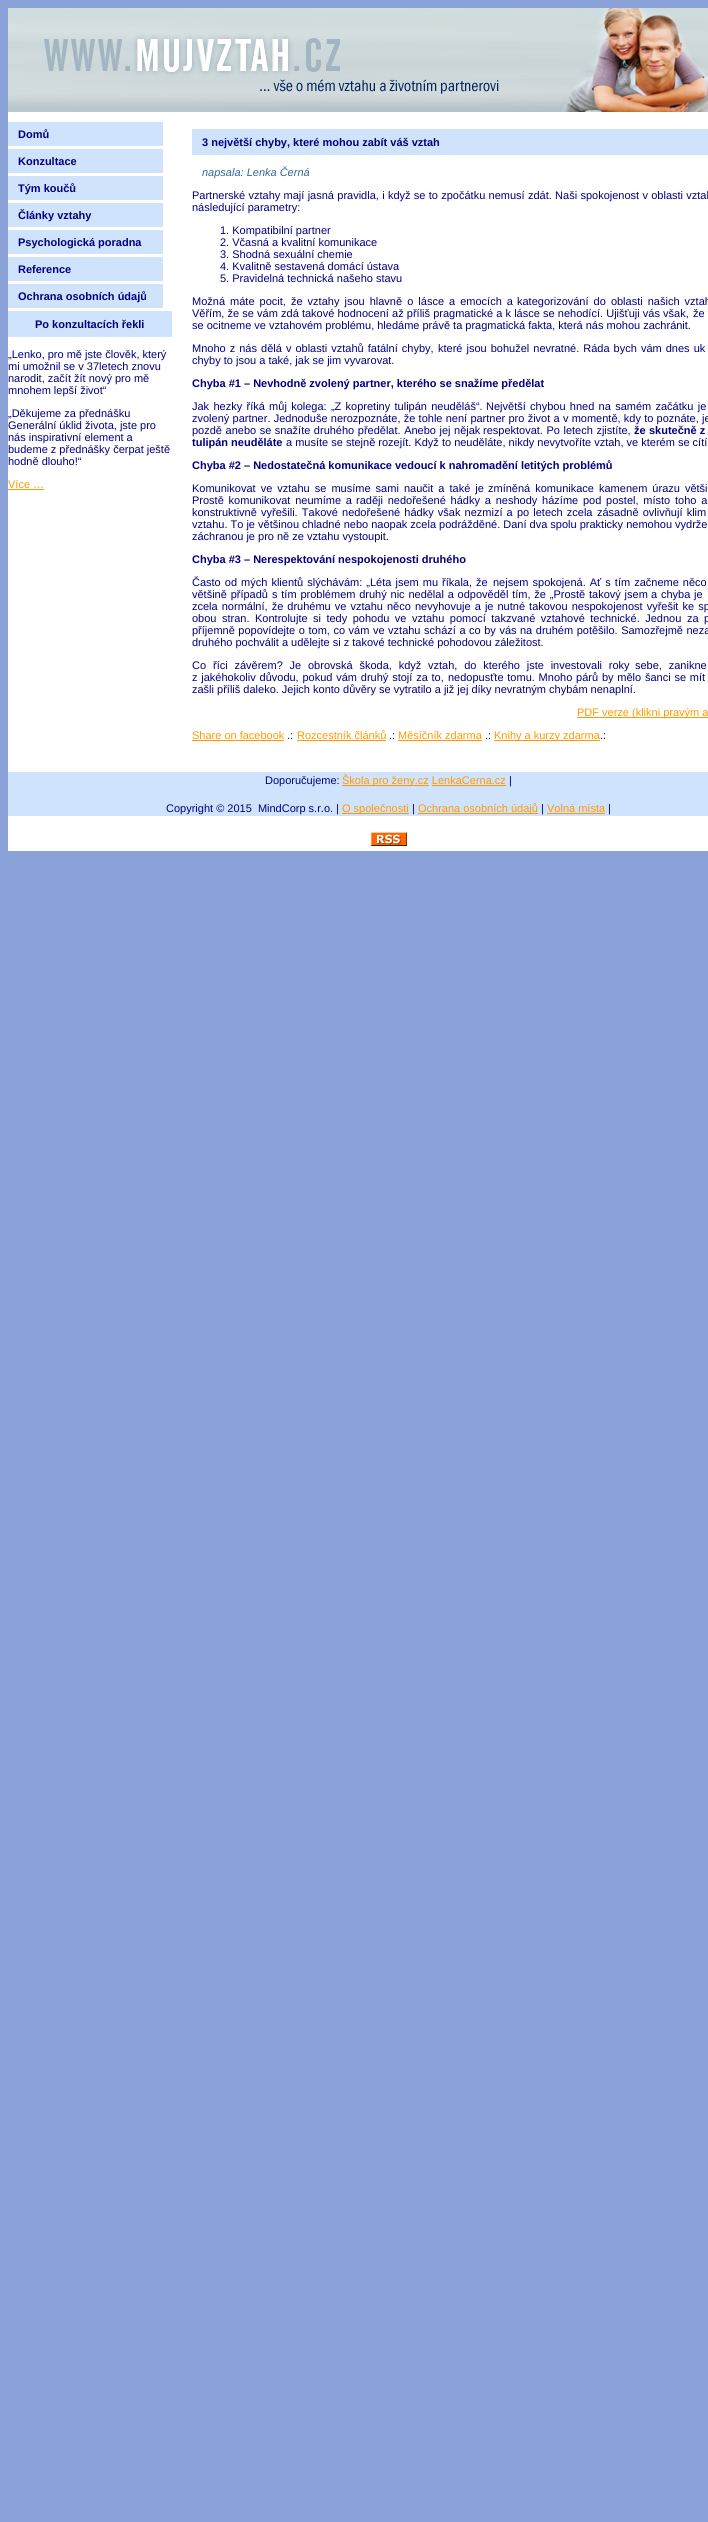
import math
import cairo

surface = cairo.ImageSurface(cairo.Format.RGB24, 708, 2522)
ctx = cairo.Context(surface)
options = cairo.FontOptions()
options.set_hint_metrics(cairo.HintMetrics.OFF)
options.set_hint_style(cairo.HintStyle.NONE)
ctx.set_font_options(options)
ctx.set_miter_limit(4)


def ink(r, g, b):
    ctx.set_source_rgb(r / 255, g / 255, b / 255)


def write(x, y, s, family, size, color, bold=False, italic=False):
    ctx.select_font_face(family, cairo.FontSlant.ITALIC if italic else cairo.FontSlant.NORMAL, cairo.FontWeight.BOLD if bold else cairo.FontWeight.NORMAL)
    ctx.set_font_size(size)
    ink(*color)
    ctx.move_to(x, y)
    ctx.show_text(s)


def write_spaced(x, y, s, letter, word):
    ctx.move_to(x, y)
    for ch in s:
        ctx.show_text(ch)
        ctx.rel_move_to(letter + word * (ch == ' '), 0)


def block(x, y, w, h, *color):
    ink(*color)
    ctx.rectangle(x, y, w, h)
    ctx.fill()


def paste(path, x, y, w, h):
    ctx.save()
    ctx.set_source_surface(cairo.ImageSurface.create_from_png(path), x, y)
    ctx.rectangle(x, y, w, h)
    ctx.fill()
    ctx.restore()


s1 = dict(family="Liberation Sans", size=11, color=(0, 0, 128), bold=True)
s2 = dict(family="Liberation Sans", size=11, color=(0, 0, 128))
s3 = dict(family="Liberation Sans", size=11, color=(255, 153, 0))
s4 = dict(family="Liberation Sans", size=11, color=(51, 102, 153), italic=True)

ink(139, 162, 217)
ctx.paint()
block(8, 112, 700, 739, 255, 255, 255)
paste("pic1.png", 8, 8, 700, 104)
block(8, 122, 155, 24, 208, 227, 253)
write(18, 138, "Domů", **s1)
block(8, 149, 155, 24, 208, 227, 253)
write(18, 165, "Konzultace", **s1)
block(8, 176, 155, 24, 208, 227, 253)
write(18, 192, "Tým koučů", **s1)
block(8, 203, 155, 24, 208, 227, 253)
write(18, 219, "Články vztahy", **s1)
block(8, 230, 155, 24, 208, 227, 253)
write(18, 246, "Psychologická poradna", **s1)
block(8, 257, 155, 24, 208, 227, 253)
write(18, 273, "Reference", **s1)
block(8, 284, 155, 24, 208, 227, 253)
write(18, 300, "Ochrana osobních údajů", **s1)
block(8, 311, 164, 26, 208, 227, 253)
write(35, 328, "Po konzultacích řekli", **s1)
write(8, 358, "„Lenko, pro mě jste člověk, který", **s2)
write(8, 370, "mi umožnil se v 37letech znovu", **s2)
write(8, 382, "narodit, začít žít nový pro mě", **s2)
write(8, 394, "mnohem lepší život“", **s2)
write(8, 417, "„Děkujeme za přednášku", **s2)
write(8, 429, "Generální úklid života, jste pro", **s2)
write(8, 441, "nás inspirativní element a", **s2)
write(8, 453, "budeme z přednášky čerpat ještě", **s2)
write(8, 465, "hodně dlouho!“", **s2)
write(8, 488, "Více …", **s3)
block(8, 489, 36, 1, 255, 153, 0)
block(192, 129, 516, 26, 208, 227, 253)
write(202, 146, "3 největší chyby, které mohou zabít váš vztah", **s1)
write(202, 176, "napsala: Lenka Černá", **s4)
ctx.select_font_face("Liberation Sans")
ink(0, 0, 128)
write_spaced(192, 199, "Partnerské vztahy mají jasná pravidla, i když se to zpočátku nemusí zdát. Naši spokojenost v oblasti vztah", 0, 0.25)
write(192, 211, "následující parametry:", **s2)
write(220, 234, "1. Kompatibilní partner", **s2)
write(220, 246, "2. Včasná a kvalitní komunikace", **s2)
write(220, 258, "3. Shodná sexuální chemie", **s2)
write(220, 270, "4. Kvalitně sestavená domácí ústava", **s2)
write(220, 282, "5. Pravidelná technická našeho stavu", **s2)
write_spaced(192, 305, "Možná máte pocit, že vztahy jsou hlavně o lásce a emocích a", 0, 2)
write_spaced(517, 305, "kategorizování do oblasti našich vztah", 0, 2)
write_spaced(192, 317, "Věřím, že se vám zdá takové hodnocení až příliš pragmatické a k lásce se nehodící. Ujišťuji vás však,", 0, 0.1)
write(693, 317, "že", **s2)
write(192, 329, "se ocitneme ve vztahovém problému, hledáme právě ta pragmatická fakta, která nás mohou zachránit.", **s2)
write_spaced(192, 352, "Mnoho z nás dělá v oblasti vztahů fatální chyby,", 0, 1)
write_spaced(438, 352, "které jsou bohužel nevratné. Ráda bych vám dnes uk", 0, 1)
write(192, 364, "chyby to jsou a také, jak se jim vyvarovat.", **s2)
write(192, 387, "Chyba #1 – Nevhodně zvolený partner, kterého se snažíme předělat", **s1)
ctx.select_font_face("Liberation Sans")
write_spaced(192, 410, "Jak hezky říká můj kolega: „Z kopretiny tulipán neuděláš“.", 0, 1.25)
write_spaced(486, 410, "Největší chybou hned na samém začátku je", 0, 1.25)
write_spaced(192, 422, "zvolený partner. Jednoduše nerozpoznáte, že tohle není partner pro život a v momentě, kdy to poznáte, je", 0, 0.2)
write_spaced(192, 434, "pozdě anebo se snažíte druhého předělat. Anebo jej nějak", 0, 0.5)
write_spaced(483, 434, "respektovat. Po letech zjistíte,", 0, 0.5)
write(634, 434, "že", **s1)
write(649, 434, "skutečně z", **s1)
write(192, 446, "tulipán neuděláte", **s1)
write(286, 446, "a musíte se stejně rozejít. Když to neuděláte, nikdy nevytvoříte vztah, ve kterém se cítí", **s2)
write(192, 469, "Chyba #2 – Nedostatečná komunikace vedoucí k nahromadění letitých problémů", **s1)
ctx.select_font_face("Liberation Sans")
write_spaced(192, 492, "Komunikovat ve vztahu se musíme sami naučit a také je", 0, 2)
write_spaced(488, 492, "zmíněná komunikace kamenem úrazu větši", 0, 2)
write_spaced(192, 504, "Prostě komunikovat neumíme a", 0, 1.75)
write_spaced(356, 504, "raději nedořešené hádky a neshody házíme pod postel, místo toho a", 0, 1.75)
write_spaced(192, 516, "konstruktivně vyřešili. Takové nedořešené hádky však nezmizí a po letech zcela", 0, 1.1)
write_spaced(597, 516, "zásadně ovlivňují klim", 0, 1.1)
write(192, 528, "vztahu. To je většinou chladné nebo naopak zcela podrážděné. Daní dva spolu prakticky nemohou vydrže", **s2)
write(192, 540, "záchranou je pro ně ze vztahu vystoupit.", **s2)
write(192, 563, "Chyba #3 – Nerespektování nespokojenosti druhého", **s1)
ctx.select_font_face("Liberation Sans")
write_spaced(192, 586, "Často od mých klientů slýchávám: „Léta jsem mu říkala, že", 0, 1)
write_spaced(493, 586, "nejsem spokojená. Ať s tím začneme něco", 0, 1)
write_spaced(192, 598, "většině případů", 0, 0.75)
write_spaced(272, 598, "s tím problémem druhý nic nedělal a odpověděl tím, že „Prostě takový jsem", 0, 0.75)
write_spaced(651, 598, "a chyba je", 0, 0.75)
write_spaced(192, 610, "zcela normální, že druhému ve vztahu něco", 0, 1)
write_spaced(415, 610, "nevyhovuje a je nutné takovou nespokojenost vyřešit ke sp", 0, 1)
write_spaced(192, 622, "obou stran.", 0, 2.4)
write_spaced(255, 622, "Kontrolujte si tedy pohodu ve vztahu pomocí takzvané vztahové technické. Jednou", 0, 2.4)
write_spaced(687, 622, "za p", 0, 2.4)
write_spaced(192, 634, "příjemně popovídejte o tom, co vám ve vztahu schází a co by vás", 0, 0.5)
write_spaced(520, 634, "na druhém potěšilo. Samozřejmě neza", 0, 0.5)
write(192, 646, "druhého pochválit a udělejte si z takové technické pohodovou záležitost.", **s2)
write(192, 669, "Co", **s2)
write_spaced(213, 669, "říci závěrem? Je obrovská škoda, když vztah, do kterého jste investovali roky", 0, 3.75)
write_spaced(635, 669, "sebe, zanikne", 0, 3.75)
write_spaced(192, 681, "z jakéhokoliv důvodu, pokud vám druhý stojí za to,", 0, 0.75)
write_spaced(448, 681, "nedopusťte tomu. Mnoho párů by mělo šanci se mít", 0, 0.75)
write(192, 693, "zašli příliš daleko. Jejich konto důvěry se vytratilo a již jej díky nevratným chybám nenaplní.", **s2)
block(577, 717, 131, 1, 255, 153, 0)
write(577, 716, "PDF verze (klikni pravým a", **s3)
write(192, 739, "Share on facebook", **s3)
block(192, 740, 92, 1, 255, 153, 0)
write(287, 739, ".:", **s2)
write(297, 739, "Rozcestník článků", **s3)
block(297, 740, 89, 1, 255, 153, 0)
write(389, 739, ".:", **s2)
write(398, 739, "Měsíčník zdarma", **s3)
block(398, 740, 84, 1, 255, 153, 0)
write(485, 739, ".:", **s2)
block(494, 740, 106, 1, 255, 153, 0)
write(494, 739, "Knihy a kurzy zdarma", **s3)
write(600, 739, ".:", **s2)
block(8, 772, 700, 44, 208, 227, 253)
write(265, 784, "Doporučujeme:", **s2)
block(342, 785, 87, 1, 255, 153, 0)
write(342, 784, "Škola pro ženy.cz LenkaCerna.cz", **s3)
write(509, 784, "|", **s2)
block(432, 785, 74, 1, 255, 153, 0)
write(166, 812, "Copyright © 2015  MindCorp s.r.o. |", **s2)
block(342, 813, 67, 1, 255, 153, 0)
write(342, 812, "O společnosti", **s3)
write(412, 812, "|", **s2)
block(418, 813, 120, 1, 255, 153, 0)
write(418, 812, "Ochrana osobních údajů", **s3)
write(541, 812, "|", **s2)
write(547, 812, "Volná místa", **s3)
block(547, 813, 58, 1, 255, 153, 0)
write(608, 812, "|", **s2)
paste("pic2.png", 371, 832, 36, 14)
surface.write_to_png("screenshot.png")
